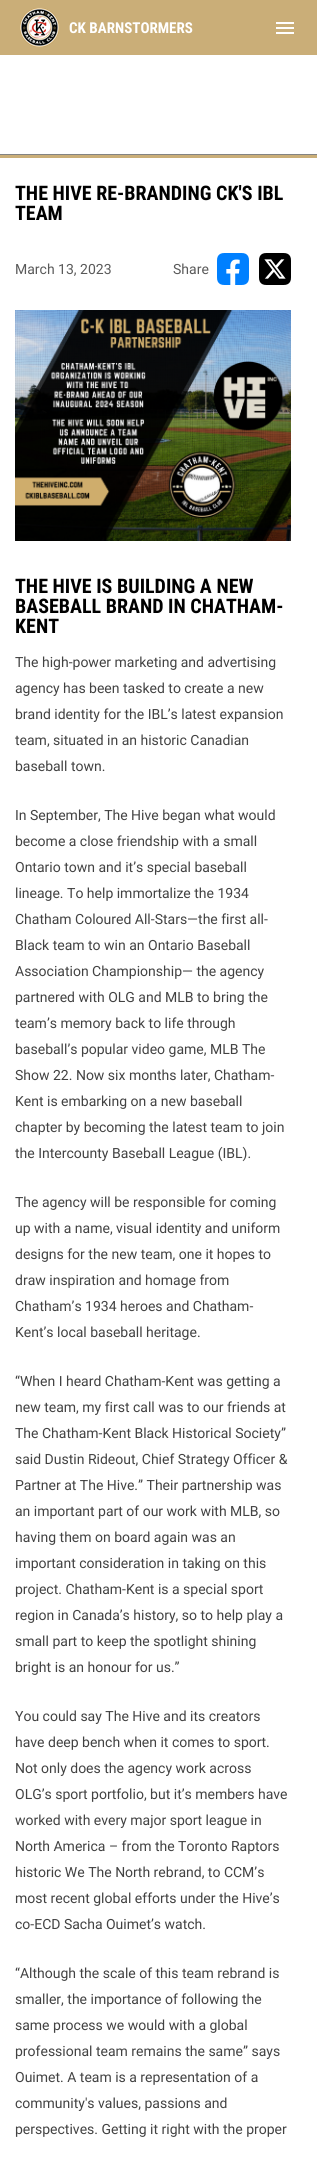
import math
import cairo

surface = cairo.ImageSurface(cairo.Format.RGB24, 317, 2157)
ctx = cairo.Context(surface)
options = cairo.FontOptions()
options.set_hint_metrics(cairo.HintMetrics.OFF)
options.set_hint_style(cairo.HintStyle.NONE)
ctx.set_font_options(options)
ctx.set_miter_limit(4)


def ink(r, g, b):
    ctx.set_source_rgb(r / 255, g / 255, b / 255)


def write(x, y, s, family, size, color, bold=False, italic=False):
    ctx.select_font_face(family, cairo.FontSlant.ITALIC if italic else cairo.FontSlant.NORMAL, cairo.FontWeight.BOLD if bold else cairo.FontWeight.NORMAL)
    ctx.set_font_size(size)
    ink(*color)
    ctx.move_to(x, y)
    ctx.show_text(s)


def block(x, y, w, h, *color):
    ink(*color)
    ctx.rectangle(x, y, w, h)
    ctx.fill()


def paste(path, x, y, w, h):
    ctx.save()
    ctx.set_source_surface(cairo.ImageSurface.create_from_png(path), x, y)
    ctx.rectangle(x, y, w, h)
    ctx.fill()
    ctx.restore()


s1 = dict(family="Roboto Condensed", size=15, color=(255, 255, 255), bold=True)
s2 = dict(family="Roboto Condensed", size=20, color=(0, 0, 0), bold=True)
s3 = dict(family="Roboto", size=14, color=(89, 89, 89))
s4 = dict(family="Roboto", size=14, color=(66, 66, 66))

ink(255, 255, 255)
ctx.paint()
block(0, 0, 317, 55, 202, 174, 120)
paste("pic1.png", 20, 8, 39, 39)
write(69, 33, "CK BARNSTORMERS", **s1)
paste("pic2.png", 276, 22, 18, 12)
block(0, 155, 317, 3, 202, 174, 120)
write(15, 200, "THE HIVE RE-BRANDING CK'S IBL", **s2)
write(15, 220, "TEAM", **s2)
write(15, 274, "March 13, 2023", **s3)
write(173, 274, "Share", **s3)
paste("pic3.png", 217, 253, 32, 32)
paste("pic4.png", 259, 253, 32, 32)
paste("pic5.png", 15, 310, 276, 231)
write(15, 593, "THE HIVE IS BUILDING A NEW", **s2)
write(15, 613, "BASEBALL BRAND IN CHATHAM-", **s2)
write(15, 633, "KENT", **s2)
write(15, 667, "The high-power marketing and advertising", **s4)
write(15, 693, "agency has been tasked to create a new", **s4)
write(15, 719, "brand identity for the IBL’s latest expansion", **s4)
write(15, 745, "team, situated in an historic Canadian", **s4)
write(15, 771, "baseball town.", **s4)
write(15, 820, "In September, The Hive began what would", **s4)
write(15, 846, "become a close friendship with a small", **s4)
write(15, 872, "Ontario town and it’s special baseball", **s4)
write(15, 898, "lineage. To help immortalize the 1934", **s4)
write(15, 924, "Chatham Coloured All-Stars—the first all-", **s4)
write(15, 950, "Black team to win an Ontario Baseball", **s4)
write(15, 976, "Association Championship— the agency", **s4)
write(15, 1002, "partnered with OLG and MLB to bring the", **s4)
write(15, 1028, "team’s memory back to life through", **s4)
write(15, 1054, "baseball’s popular video game, MLB The", **s4)
write(15, 1080, "Show 22. Now six months later, Chatham-", **s4)
write(15, 1106, "Kent is embarking on a new baseball", **s4)
write(15, 1132, "chapter by becoming the latest team to join", **s4)
write(15, 1158, "the Intercounty Baseball League (IBL).", **s4)
write(15, 1207, "The agency will be responsible for coming", **s4)
write(15, 1233, "up with a name, visual identity and uniform", **s4)
write(15, 1259, "designs for the new team, one it hopes to", **s4)
write(15, 1285, "draw inspiration and homage from", **s4)
write(15, 1311, "Chatham’s 1934 heroes and Chatham-", **s4)
write(15, 1337, "Kent’s local baseball heritage.", **s4)
write(15, 1386, "“When I heard Chatham-Kent was getting a", **s4)
write(15, 1412, "new team, my first call was to our friends at", **s4)
write(15, 1438, "The Chatham-Kent Black Historical Society”", **s4)
write(15, 1464, "said Dustin Rideout, Chief Strategy Officer &", **s4)
write(15, 1490, "Partner at The Hive.” Their partnership was", **s4)
write(15, 1516, "an important part of our work with MLB, so", **s4)
write(15, 1542, "having them on board again was an", **s4)
write(15, 1568, "important consideration in taking on this", **s4)
write(15, 1594, "project. Chatham-Kent is a special sport", **s4)
write(15, 1620, "region in Canada’s history, so to help play a", **s4)
write(15, 1646, "small part to keep the spotlight shining", **s4)
write(15, 1672, "bright is an honour for us.”", **s4)
write(15, 1721, "You could say The Hive and its creators", **s4)
write(15, 1747, "have deep bench when it comes to sport.", **s4)
write(15, 1773, "Not only does the agency work across", **s4)
write(15, 1799, "OLG’s sport portfolio, but it’s members have", **s4)
write(15, 1825, "worked with every major sport league in", **s4)
write(15, 1851, "North America – from the Toronto Raptors", **s4)
write(15, 1877, "historic We The North rebrand, to CCM’s", **s4)
write(15, 1903, "most recent global efforts under the Hive’s", **s4)
write(15, 1929, "co-ECD Sacha Ouimet’s watch.", **s4)
write(15, 1978, "“Although the scale of this team rebrand is", **s4)
write(15, 2004, "smaller, the importance of following the", **s4)
write(15, 2030, "same process we would with a global", **s4)
write(15, 2056, "professional team remains the same” says", **s4)
write(15, 2082, "Ouimet. A team is a representation of a", **s4)
write(15, 2108, "community's values, passions and", **s4)
write(15, 2134, "perspectives. Getting it right with the proper", **s4)
block(0, 154, 317, 1, 131, 131, 131)
surface.write_to_png("screenshot.png")
